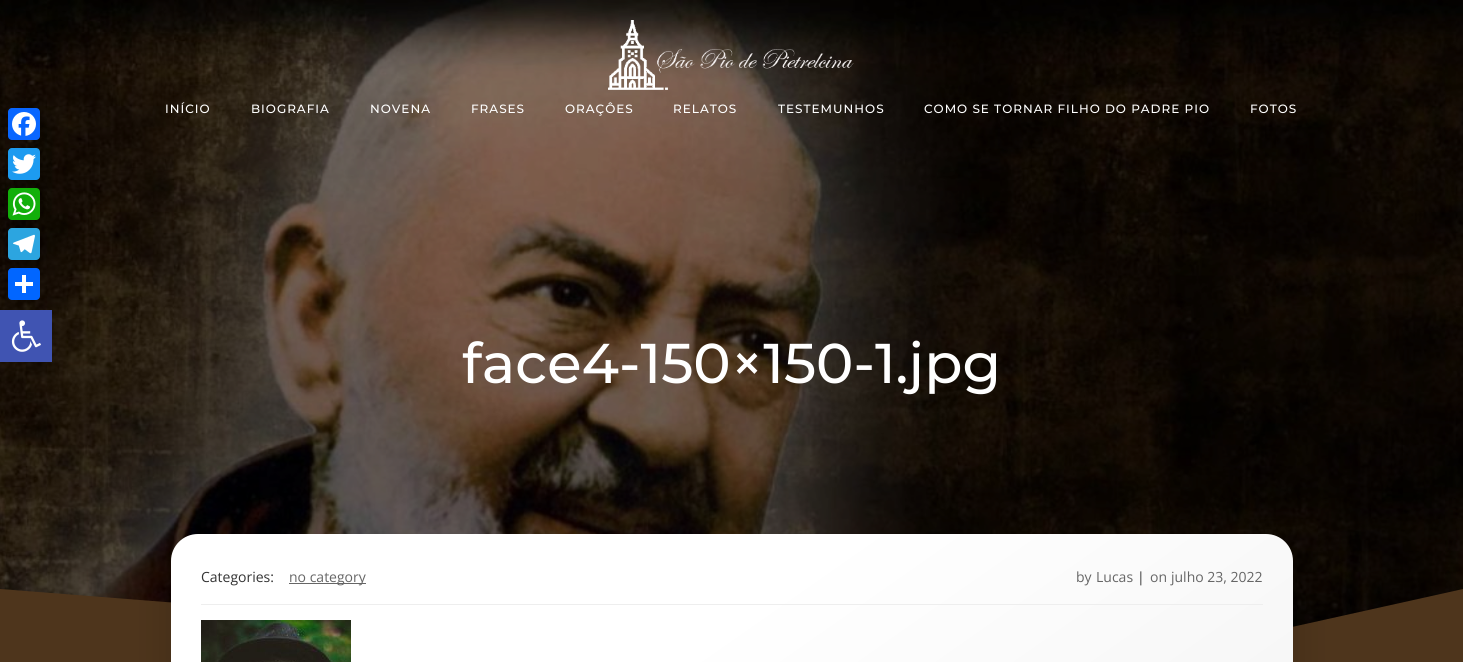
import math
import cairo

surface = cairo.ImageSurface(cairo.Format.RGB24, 1463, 662)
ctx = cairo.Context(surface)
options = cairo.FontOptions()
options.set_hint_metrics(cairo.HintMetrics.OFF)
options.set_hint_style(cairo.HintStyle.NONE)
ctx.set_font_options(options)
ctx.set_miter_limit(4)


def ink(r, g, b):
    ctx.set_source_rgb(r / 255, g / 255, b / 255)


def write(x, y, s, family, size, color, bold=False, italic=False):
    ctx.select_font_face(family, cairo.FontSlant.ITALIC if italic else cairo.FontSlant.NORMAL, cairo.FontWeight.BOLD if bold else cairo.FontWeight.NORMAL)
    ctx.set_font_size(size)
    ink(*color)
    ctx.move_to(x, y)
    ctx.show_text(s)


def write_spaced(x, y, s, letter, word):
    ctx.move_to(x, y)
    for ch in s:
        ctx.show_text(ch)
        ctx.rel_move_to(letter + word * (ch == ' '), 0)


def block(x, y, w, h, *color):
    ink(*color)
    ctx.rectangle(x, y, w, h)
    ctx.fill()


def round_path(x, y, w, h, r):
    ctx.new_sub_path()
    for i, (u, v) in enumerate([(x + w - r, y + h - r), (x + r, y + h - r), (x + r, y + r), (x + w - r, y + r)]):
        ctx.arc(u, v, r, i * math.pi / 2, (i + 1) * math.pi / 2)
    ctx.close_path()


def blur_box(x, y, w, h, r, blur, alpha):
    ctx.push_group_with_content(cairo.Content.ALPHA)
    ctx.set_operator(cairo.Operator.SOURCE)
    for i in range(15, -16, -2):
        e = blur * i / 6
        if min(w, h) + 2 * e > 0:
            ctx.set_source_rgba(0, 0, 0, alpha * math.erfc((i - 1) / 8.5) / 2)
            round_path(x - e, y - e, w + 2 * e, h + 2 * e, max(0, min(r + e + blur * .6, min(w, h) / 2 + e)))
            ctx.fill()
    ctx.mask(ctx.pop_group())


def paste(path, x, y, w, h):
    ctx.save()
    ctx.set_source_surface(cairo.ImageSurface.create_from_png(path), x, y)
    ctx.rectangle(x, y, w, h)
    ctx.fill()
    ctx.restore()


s1 = dict(family="Montserrat Medium", size=56, color=(255, 255, 255))
s2 = dict(family="Open Sans", size=14, color=(51, 51, 51))
s3 = dict(family="Open Sans", size=14, color=(102, 102, 102))

ink(255, 255, 255)
ctx.paint()
paste("pic6.png", 0, 0, 1463, 627)
ink(8, 102, 255)
round_path(8, 108, 32, 32, 4)
ctx.fill()
paste("pic1.png", 12, 112, 24, 24)
ink(29, 155, 240)
round_path(8, 148, 32, 32, 4)
ctx.fill()
paste("pic2.png", 12, 154, 24, 20)
ink(18, 175, 10)
round_path(8, 188, 32, 32, 4)
ctx.fill()
paste("pic3.png", 12, 192, 24, 24)
ink(44, 165, 224)
round_path(8, 228, 32, 32, 4)
ctx.fill()
paste("pic4.png", 13, 234, 22, 20)
ink(1, 102, 255)
round_path(8, 268, 32, 32, 4)
ctx.fill()
block(22, 275, 4, 18, 255, 255, 255)
block(15, 282, 18, 4, 255, 255, 255)
paste("pic5.png", 608, 20, 246, 70)
ctx.select_font_face("Montserrat Medium")
ctx.set_font_size(12)
write_spaced(165, 113, "INÍCIO", 1, 0)
write_spaced(251, 113, "BIOGRAFIA", 1, 0)
write_spaced(370, 113, "NOVENA", 1, 0)
write_spaced(471, 113, "FRASES", 1, 0)
write_spaced(565, 113, "ORAÇÔES", 1, 0)
write_spaced(673, 113, "RELATOS", 1, 0)
write_spaced(778, 113, "TESTEMUNHOS", 1, 0)
write_spaced(924, 113, "COMO SE TORNAR FILHO DO PADRE PIO", 1, 0)
write_spaced(1250, 113, "FOTOS", 1, 0)
write(462, 383, "face4-150×150-1.jpg", **s1)
ink(78, 53, 28)
ctx.new_path()
ctx.move_to(1080, 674)
ctx.line_to(0, 589)
ctx.line_to(0, 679)
ctx.line_to(1463, 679)
ctx.line_to(1463, 589)
ctx.close_path()
ctx.fill()
block(826, 654, 344, 8, 78, 53, 28)
ctx.save()
ctx.rectangle(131, 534, 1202, 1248)
ctx.clip()
ink(0, 0, 0)
blur_box(169, 552, 1126, 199, 29, 20, 0.15)
ctx.restore()
gradient = cairo.LinearGradient(468, 326, 996, 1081)
gradient.add_color_stop_rgba(0.42, 1, 1, 1, 1)
gradient.add_color_stop_rgba(1, 0.953, 0.953, 0.953, 1)
ctx.set_source(gradient)
ctx.new_path()
ctx.move_to(198, 534)
ctx.line_to(1266, 534)
ctx.curve_to(1281, 534, 1293, 546, 1293, 561)
ctx.line_to(1293, 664)
ctx.curve_to(1293, 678, 1282, 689, 1268, 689)
ctx.line_to(196, 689)
ctx.curve_to(182, 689, 171, 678, 171, 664)
ctx.line_to(171, 561)
ctx.curve_to(171, 546, 183, 534, 198, 534)
ctx.close_path()
ctx.fill()
block(201, 604, 1062, 1, 238, 238, 238)
write(201, 582, "Categories:", **s2)
block(289, 583, 77, 1, 102, 102, 102)
write(289, 582, "no category", **s3)
write(1076, 582, "by", **s3)
write(1096, 582, "Lucas", **s3)
write(1137, 582, "|", **s2)
write(1150, 582, "on", **s3)
write(1171, 582, "julho 23, 2022", **s3)
paste("pic7.png", 201, 620, 150, 42)
block(0, 310, 52, 52, 64, 84, 178)
paste("pic8.png", 11, 320, 30, 32)
surface.write_to_png("screenshot.png")
